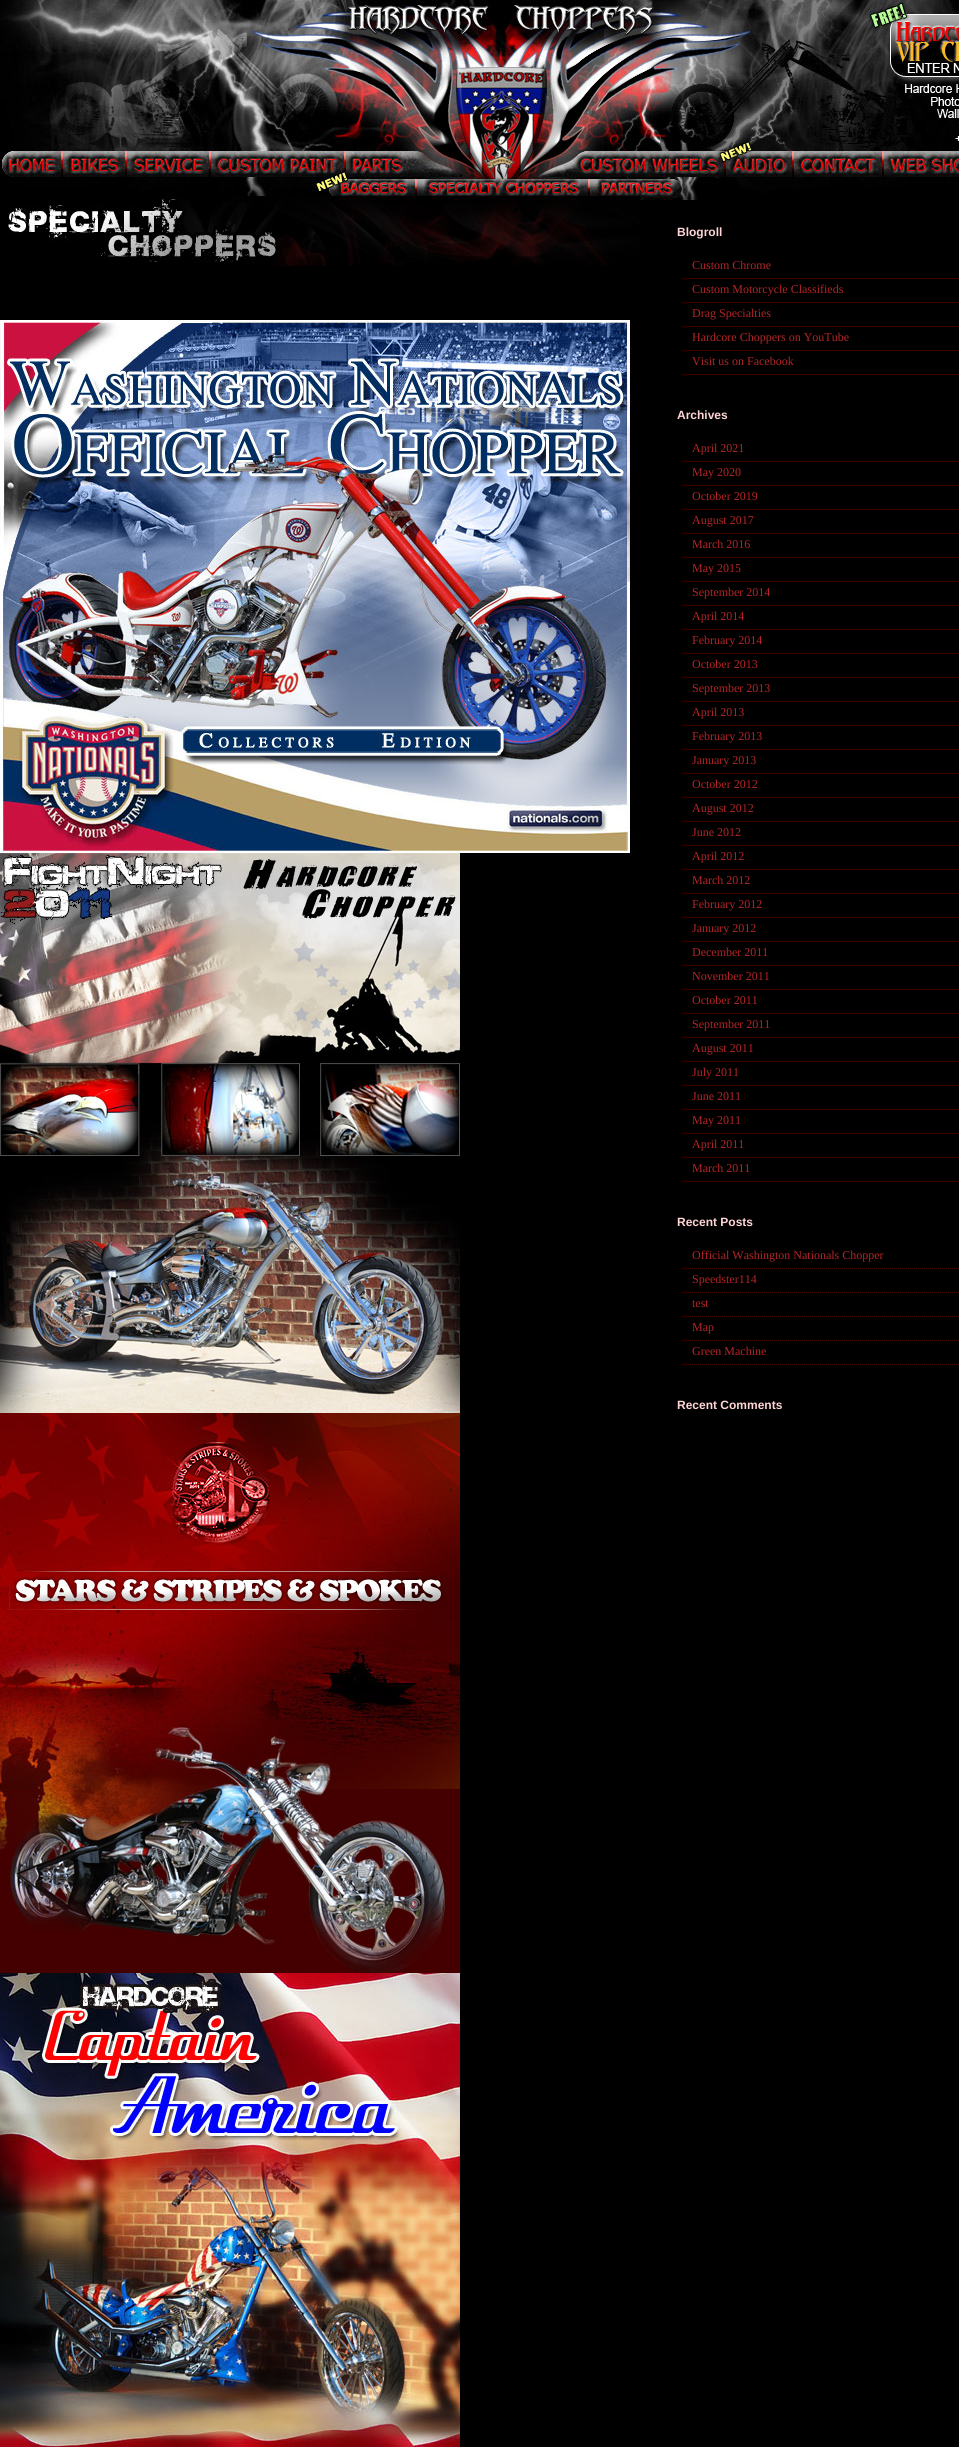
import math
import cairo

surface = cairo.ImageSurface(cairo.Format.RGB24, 959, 2447)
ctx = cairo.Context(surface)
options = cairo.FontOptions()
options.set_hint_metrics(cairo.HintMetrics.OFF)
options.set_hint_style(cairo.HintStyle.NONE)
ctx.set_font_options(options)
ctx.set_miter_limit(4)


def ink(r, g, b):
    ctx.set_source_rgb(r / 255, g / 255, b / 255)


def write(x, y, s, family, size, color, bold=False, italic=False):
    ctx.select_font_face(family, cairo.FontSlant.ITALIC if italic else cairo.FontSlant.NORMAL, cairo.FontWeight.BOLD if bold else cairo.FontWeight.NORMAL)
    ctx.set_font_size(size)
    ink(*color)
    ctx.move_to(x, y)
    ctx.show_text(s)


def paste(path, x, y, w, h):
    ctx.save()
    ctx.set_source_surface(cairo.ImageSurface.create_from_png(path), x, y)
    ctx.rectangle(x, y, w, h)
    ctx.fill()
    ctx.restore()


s1 = dict(family="Liberation Sans", size=12, color=(255, 213, 214), bold=True)
s2 = dict(family="Liberation Serif", size=12, color=(179, 37, 38))

ink(0, 0, 0)
ctx.paint()
paste("pic1.png", 0, 0, 959, 200)
paste("pic2.png", 8, 196, 632, 70)
paste("pic3.png", 0, 320, 630, 533)
paste("pic4.png", 0, 853, 460, 560)
paste("pic5.png", 0, 1413, 460, 560)
paste("pic6.png", 0, 1973, 460, 474)
write(677, 236, "Blogroll", **s1)
ctx.new_path()
ctx.move_to(682, 278.5)
ctx.line_to(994, 278.5)
ink(78, 0, 0)
ctx.set_line_width(1)
ctx.set_dash([1, 1])
ctx.stroke()
write(692, 269, "Custom Chrome", **s2)
ctx.new_path()
ctx.move_to(682, 302.5)
ctx.line_to(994, 302.5)
ink(78, 0, 0)
ctx.stroke()
write(692, 293, "Custom Motorcycle Classifieds", **s2)
ctx.new_path()
ctx.move_to(682, 326.5)
ctx.line_to(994, 326.5)
ink(78, 0, 0)
ctx.stroke()
write(692, 317, "Drag Specialties", **s2)
ctx.new_path()
ctx.move_to(682, 350.5)
ctx.line_to(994, 350.5)
ink(78, 0, 0)
ctx.stroke()
write(692, 341, "Hardcore Choppers on YouTube", **s2)
ctx.new_path()
ctx.move_to(682, 374.5)
ctx.line_to(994, 374.5)
ink(78, 0, 0)
ctx.stroke()
write(692, 365, "Visit us on Facebook", **s2)
write(677, 419, "Archives", **s1)
ctx.new_path()
ctx.move_to(682, 461.5)
ctx.line_to(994, 461.5)
ink(78, 0, 0)
ctx.stroke()
write(692, 452, "April 2021", **s2)
ctx.new_path()
ctx.move_to(682, 485.5)
ctx.line_to(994, 485.5)
ink(78, 0, 0)
ctx.stroke()
write(692, 476, "May 2020", **s2)
ctx.new_path()
ctx.move_to(682, 509.5)
ctx.line_to(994, 509.5)
ink(78, 0, 0)
ctx.stroke()
write(692, 500, "October 2019", **s2)
ctx.new_path()
ctx.move_to(682, 533.5)
ctx.line_to(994, 533.5)
ink(78, 0, 0)
ctx.stroke()
write(692, 524, "August 2017", **s2)
ctx.new_path()
ctx.move_to(682, 557.5)
ctx.line_to(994, 557.5)
ink(78, 0, 0)
ctx.stroke()
write(692, 548, "March 2016", **s2)
ctx.new_path()
ctx.move_to(682, 581.5)
ctx.line_to(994, 581.5)
ink(78, 0, 0)
ctx.stroke()
write(692, 572, "May 2015", **s2)
ctx.new_path()
ctx.move_to(682, 605.5)
ctx.line_to(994, 605.5)
ink(78, 0, 0)
ctx.stroke()
write(692, 596, "September 2014", **s2)
ctx.new_path()
ctx.move_to(682, 629.5)
ctx.line_to(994, 629.5)
ink(78, 0, 0)
ctx.stroke()
write(692, 620, "April 2014", **s2)
ctx.new_path()
ctx.move_to(682, 653.5)
ctx.line_to(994, 653.5)
ink(78, 0, 0)
ctx.stroke()
write(692, 644, "February 2014", **s2)
ctx.new_path()
ctx.move_to(682, 677.5)
ctx.line_to(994, 677.5)
ink(78, 0, 0)
ctx.stroke()
write(692, 668, "October 2013", **s2)
ctx.new_path()
ctx.move_to(682, 701.5)
ctx.line_to(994, 701.5)
ink(78, 0, 0)
ctx.stroke()
write(692, 692, "September 2013", **s2)
ctx.new_path()
ctx.move_to(682, 725.5)
ctx.line_to(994, 725.5)
ink(78, 0, 0)
ctx.stroke()
write(692, 716, "April 2013", **s2)
ctx.new_path()
ctx.move_to(682, 749.5)
ctx.line_to(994, 749.5)
ink(78, 0, 0)
ctx.stroke()
write(692, 740, "February 2013", **s2)
ctx.new_path()
ctx.move_to(682, 773.5)
ctx.line_to(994, 773.5)
ink(78, 0, 0)
ctx.stroke()
write(692, 764, "January 2013", **s2)
ctx.new_path()
ctx.move_to(682, 797.5)
ctx.line_to(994, 797.5)
ink(78, 0, 0)
ctx.stroke()
write(692, 788, "October 2012", **s2)
ctx.new_path()
ctx.move_to(682, 821.5)
ctx.line_to(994, 821.5)
ink(78, 0, 0)
ctx.stroke()
write(692, 812, "August 2012", **s2)
ctx.new_path()
ctx.move_to(682, 845.5)
ctx.line_to(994, 845.5)
ink(78, 0, 0)
ctx.stroke()
write(692, 836, "June 2012", **s2)
ctx.new_path()
ctx.move_to(682, 869.5)
ctx.line_to(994, 869.5)
ink(78, 0, 0)
ctx.stroke()
write(692, 860, "April 2012", **s2)
ctx.new_path()
ctx.move_to(682, 893.5)
ctx.line_to(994, 893.5)
ink(78, 0, 0)
ctx.stroke()
write(692, 884, "March 2012", **s2)
ctx.new_path()
ctx.move_to(682, 917.5)
ctx.line_to(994, 917.5)
ink(78, 0, 0)
ctx.stroke()
write(692, 908, "February 2012", **s2)
ctx.new_path()
ctx.move_to(682, 941.5)
ctx.line_to(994, 941.5)
ink(78, 0, 0)
ctx.stroke()
write(692, 932, "January 2012", **s2)
ctx.new_path()
ctx.move_to(682, 965.5)
ctx.line_to(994, 965.5)
ink(78, 0, 0)
ctx.stroke()
write(692, 956, "December 2011", **s2)
ctx.new_path()
ctx.move_to(682, 989.5)
ctx.line_to(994, 989.5)
ink(78, 0, 0)
ctx.stroke()
write(692, 980, "November 2011", **s2)
ctx.new_path()
ctx.move_to(682, 1013.5)
ctx.line_to(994, 1013.5)
ink(78, 0, 0)
ctx.stroke()
write(692, 1004, "October 2011", **s2)
ctx.new_path()
ctx.move_to(682, 1037.5)
ctx.line_to(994, 1037.5)
ink(78, 0, 0)
ctx.stroke()
write(692, 1028, "September 2011", **s2)
ctx.new_path()
ctx.move_to(682, 1061.5)
ctx.line_to(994, 1061.5)
ink(78, 0, 0)
ctx.stroke()
write(692, 1052, "August 2011", **s2)
ctx.new_path()
ctx.move_to(682, 1085.5)
ctx.line_to(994, 1085.5)
ink(78, 0, 0)
ctx.stroke()
write(692, 1076, "July 2011", **s2)
ctx.new_path()
ctx.move_to(682, 1109.5)
ctx.line_to(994, 1109.5)
ink(78, 0, 0)
ctx.stroke()
write(692, 1100, "June 2011", **s2)
ctx.new_path()
ctx.move_to(682, 1133.5)
ctx.line_to(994, 1133.5)
ink(78, 0, 0)
ctx.stroke()
write(692, 1124, "May 2011", **s2)
ctx.new_path()
ctx.move_to(682, 1157.5)
ctx.line_to(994, 1157.5)
ink(78, 0, 0)
ctx.stroke()
write(692, 1148, "April 2011", **s2)
ctx.new_path()
ctx.move_to(682, 1181.5)
ctx.line_to(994, 1181.5)
ink(78, 0, 0)
ctx.stroke()
write(692, 1172, "March 2011", **s2)
write(677, 1226, "Recent Posts", **s1)
ctx.new_path()
ctx.move_to(682, 1268.5)
ctx.line_to(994, 1268.5)
ink(78, 0, 0)
ctx.stroke()
write(692, 1259, "Official Washington Nationals Chopper", **s2)
ctx.new_path()
ctx.move_to(682, 1292.5)
ctx.line_to(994, 1292.5)
ink(78, 0, 0)
ctx.stroke()
write(692, 1283, "Speedster114", **s2)
ctx.new_path()
ctx.move_to(682, 1316.5)
ctx.line_to(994, 1316.5)
ink(78, 0, 0)
ctx.stroke()
write(692, 1307, "test", **s2)
ctx.new_path()
ctx.move_to(682, 1340.5)
ctx.line_to(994, 1340.5)
ink(78, 0, 0)
ctx.stroke()
write(692, 1331, "Map", **s2)
ctx.new_path()
ctx.move_to(682, 1364.5)
ctx.line_to(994, 1364.5)
ink(78, 0, 0)
ctx.stroke()
write(692, 1355, "Green Machine", **s2)
write(677, 1409, "Recent Comments", **s1)
surface.write_to_png("screenshot.png")
